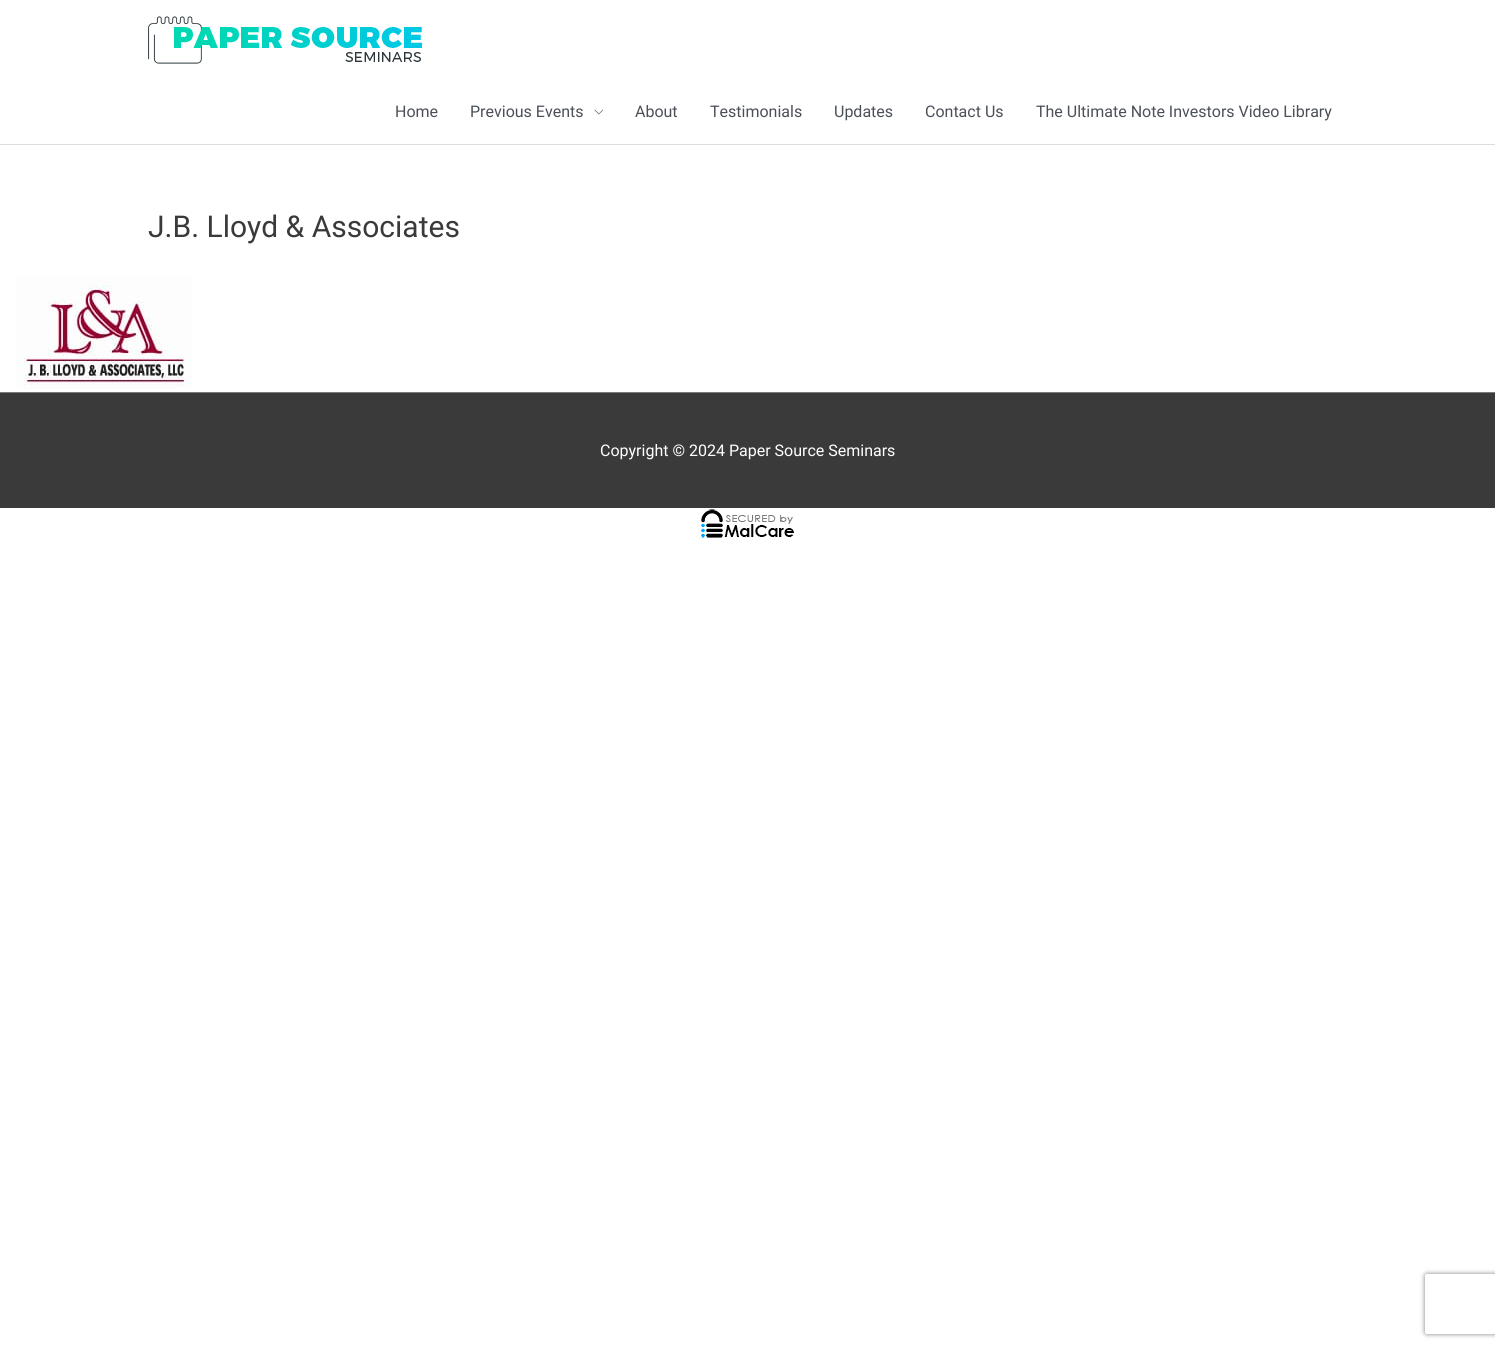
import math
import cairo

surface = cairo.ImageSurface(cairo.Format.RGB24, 1495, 1348)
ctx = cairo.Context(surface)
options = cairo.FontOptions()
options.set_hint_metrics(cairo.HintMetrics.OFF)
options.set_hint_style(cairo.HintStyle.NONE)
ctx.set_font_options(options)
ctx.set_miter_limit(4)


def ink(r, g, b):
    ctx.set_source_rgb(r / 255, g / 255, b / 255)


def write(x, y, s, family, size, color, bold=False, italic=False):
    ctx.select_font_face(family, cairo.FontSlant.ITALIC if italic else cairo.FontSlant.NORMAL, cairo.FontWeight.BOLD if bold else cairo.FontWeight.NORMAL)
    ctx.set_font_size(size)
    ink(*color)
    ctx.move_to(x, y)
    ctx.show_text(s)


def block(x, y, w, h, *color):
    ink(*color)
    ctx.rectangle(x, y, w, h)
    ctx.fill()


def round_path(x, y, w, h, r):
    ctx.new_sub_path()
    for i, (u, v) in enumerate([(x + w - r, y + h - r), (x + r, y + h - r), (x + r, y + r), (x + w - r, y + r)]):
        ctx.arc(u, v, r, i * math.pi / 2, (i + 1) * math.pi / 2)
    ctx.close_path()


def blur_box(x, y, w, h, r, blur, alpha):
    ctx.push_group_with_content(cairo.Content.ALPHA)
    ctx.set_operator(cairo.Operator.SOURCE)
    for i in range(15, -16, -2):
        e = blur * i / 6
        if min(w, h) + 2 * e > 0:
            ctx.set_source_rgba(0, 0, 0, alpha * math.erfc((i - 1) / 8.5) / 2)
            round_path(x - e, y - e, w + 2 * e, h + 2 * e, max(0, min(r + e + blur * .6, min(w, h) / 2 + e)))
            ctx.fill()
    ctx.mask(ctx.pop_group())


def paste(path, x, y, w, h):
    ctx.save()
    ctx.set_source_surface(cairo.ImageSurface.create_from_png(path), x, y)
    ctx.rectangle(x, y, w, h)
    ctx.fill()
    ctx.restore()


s1 = dict(family="Roboto", size=16, color=(75, 79, 88))
s2 = dict(family="Roboto", size=30, color=(58, 58, 58))
s3 = dict(family="Roboto", size=16, color=(255, 255, 255))

ink(255, 255, 255)
ctx.paint()
block(0, 144, 1495, 1, 221, 221, 221)
paste("pic1.png", 148, 16, 274, 48)
write(395, 117, "Home", **s1)
write(470, 117, "Previous Events", **s1)
paste("pic2.png", 594, 109, 9, 6)
write(635, 117, "About", **s1)
write(710, 117, "Testimonials", **s1)
write(834, 117, "Updates", **s1)
write(925, 117, "Contact Us", **s1)
write(1036, 117, "The Ultimate Note Investors Video Library", **s1)
write(148, 237, "J.B. Lloyd & Associates", **s2)
paste("pic3.png", 16, 277, 176, 112)
block(0, 392, 1495, 1, 122, 122, 122)
block(0, 393, 1495, 115, 58, 58, 58)
write(600, 456, "Copyright © 2024 Paper Source Seminars", **s3)
paste("pic4.png", 701, 509, 93, 29)
ctx.save()
ctx.set_fill_rule(cairo.FillRule.EVEN_ODD)
ctx.new_path()
ctx.move_to(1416, 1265)
ctx.line_to(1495, 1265)
ctx.line_to(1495, 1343)
ctx.line_to(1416, 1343)
ctx.close_path()
ctx.move_to(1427, 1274)
ctx.line_to(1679, 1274)
ctx.curve_to(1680, 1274, 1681, 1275, 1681, 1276)
ctx.line_to(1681, 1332)
ctx.curve_to(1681, 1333, 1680, 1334, 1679, 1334)
ctx.line_to(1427, 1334)
ctx.curve_to(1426, 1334, 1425, 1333, 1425, 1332)
ctx.line_to(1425, 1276)
ctx.curve_to(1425, 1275, 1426, 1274, 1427, 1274)
ctx.close_path()
ctx.clip()
ink(128, 128, 128)
blur_box(1425, 1274, 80, 60, 2, 2.5, 1)
ctx.restore()
surface.write_to_png("screenshot.png")
